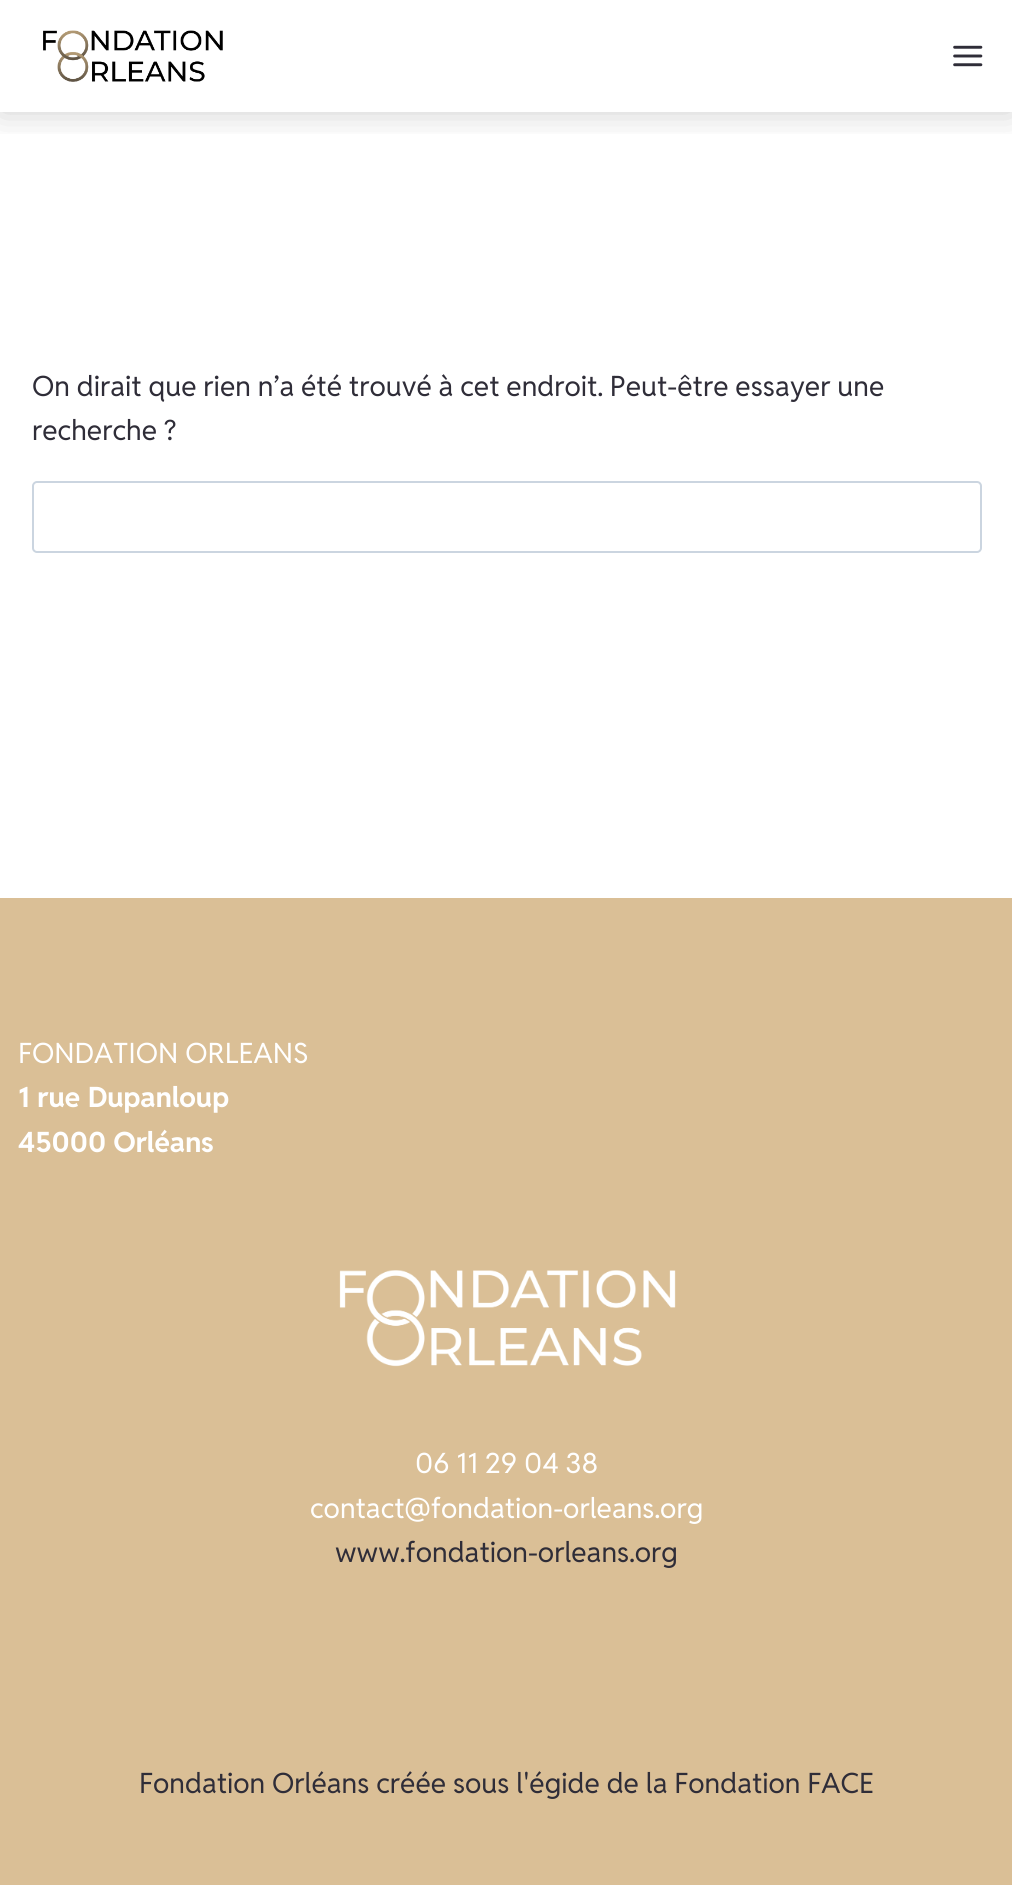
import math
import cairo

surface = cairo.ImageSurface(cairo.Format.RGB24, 1012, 1885)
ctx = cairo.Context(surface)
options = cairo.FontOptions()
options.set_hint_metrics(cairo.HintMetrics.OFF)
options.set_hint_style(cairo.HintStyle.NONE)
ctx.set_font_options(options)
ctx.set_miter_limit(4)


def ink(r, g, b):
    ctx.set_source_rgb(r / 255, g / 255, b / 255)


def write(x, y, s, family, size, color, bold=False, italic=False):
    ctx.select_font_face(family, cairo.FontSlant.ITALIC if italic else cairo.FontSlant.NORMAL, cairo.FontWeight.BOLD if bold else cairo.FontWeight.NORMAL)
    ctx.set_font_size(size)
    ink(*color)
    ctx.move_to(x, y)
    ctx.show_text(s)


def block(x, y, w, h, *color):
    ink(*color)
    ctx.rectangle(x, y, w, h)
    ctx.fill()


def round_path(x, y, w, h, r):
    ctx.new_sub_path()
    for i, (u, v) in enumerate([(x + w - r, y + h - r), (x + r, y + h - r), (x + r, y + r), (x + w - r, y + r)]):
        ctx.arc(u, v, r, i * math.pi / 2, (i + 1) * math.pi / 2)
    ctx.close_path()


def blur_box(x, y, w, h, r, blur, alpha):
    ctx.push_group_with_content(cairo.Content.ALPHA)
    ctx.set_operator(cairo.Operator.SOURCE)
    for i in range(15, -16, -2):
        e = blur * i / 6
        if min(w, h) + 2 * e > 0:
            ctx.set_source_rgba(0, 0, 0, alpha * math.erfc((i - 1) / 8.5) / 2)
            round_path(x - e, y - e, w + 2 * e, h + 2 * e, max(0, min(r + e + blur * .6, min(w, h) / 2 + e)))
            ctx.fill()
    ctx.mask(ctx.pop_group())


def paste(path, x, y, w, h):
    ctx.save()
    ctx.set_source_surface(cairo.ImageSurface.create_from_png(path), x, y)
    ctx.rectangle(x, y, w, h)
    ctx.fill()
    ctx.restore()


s1 = dict(family="Reddit Sans", size=28, color=(47, 45, 56))
s2 = dict(family="Reddit Sans", size=28, color=(255, 255, 255))
s3 = dict(family="Reddit Sans", size=28, color=(255, 255, 255), bold=True)

ink(255, 255, 255)
ctx.paint()
ctx.save()
ctx.rectangle(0, 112, 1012, 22)
ctx.clip()
ink(0, 0, 0)
blur_box(0, 0, 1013, 112, 0, 17.5, 0.2)
ctx.restore()
paste("pic1.png", 43, 30, 180, 52)
paste("pic2.png", 953, 45, 30, 22)
write(32, 396, "On dirait que rien n’a été trouvé à cet endroit. Peut-être essayer une", **s1)
write(32, 440, "recherche ?", **s1)
round_path(33, 482, 948, 70, 4)
ink(203, 213, 224)
ctx.stroke()
block(0, 898, 1012, 987, 218, 191, 150)
write(18, 1063, "FONDATION ORLEANS", **s2)
write(18, 1107, "1 rue Dupanloup", **s3)
write(18, 1152, "45000 Orléans", **s3)
paste("pic3.png", 339, 1270, 337, 97)
write(415, 1473, "06 11 29 04 38", **s2)
write(310, 1518, "contact@fondation-orleans.org", **s2)
write(335, 1562, "www.fondation-orleans.org", **s1)
write(139, 1793, "Fondation Orléans créée sous l'égide de la Fondation FACE", **s1)
surface.write_to_png("screenshot.png")
